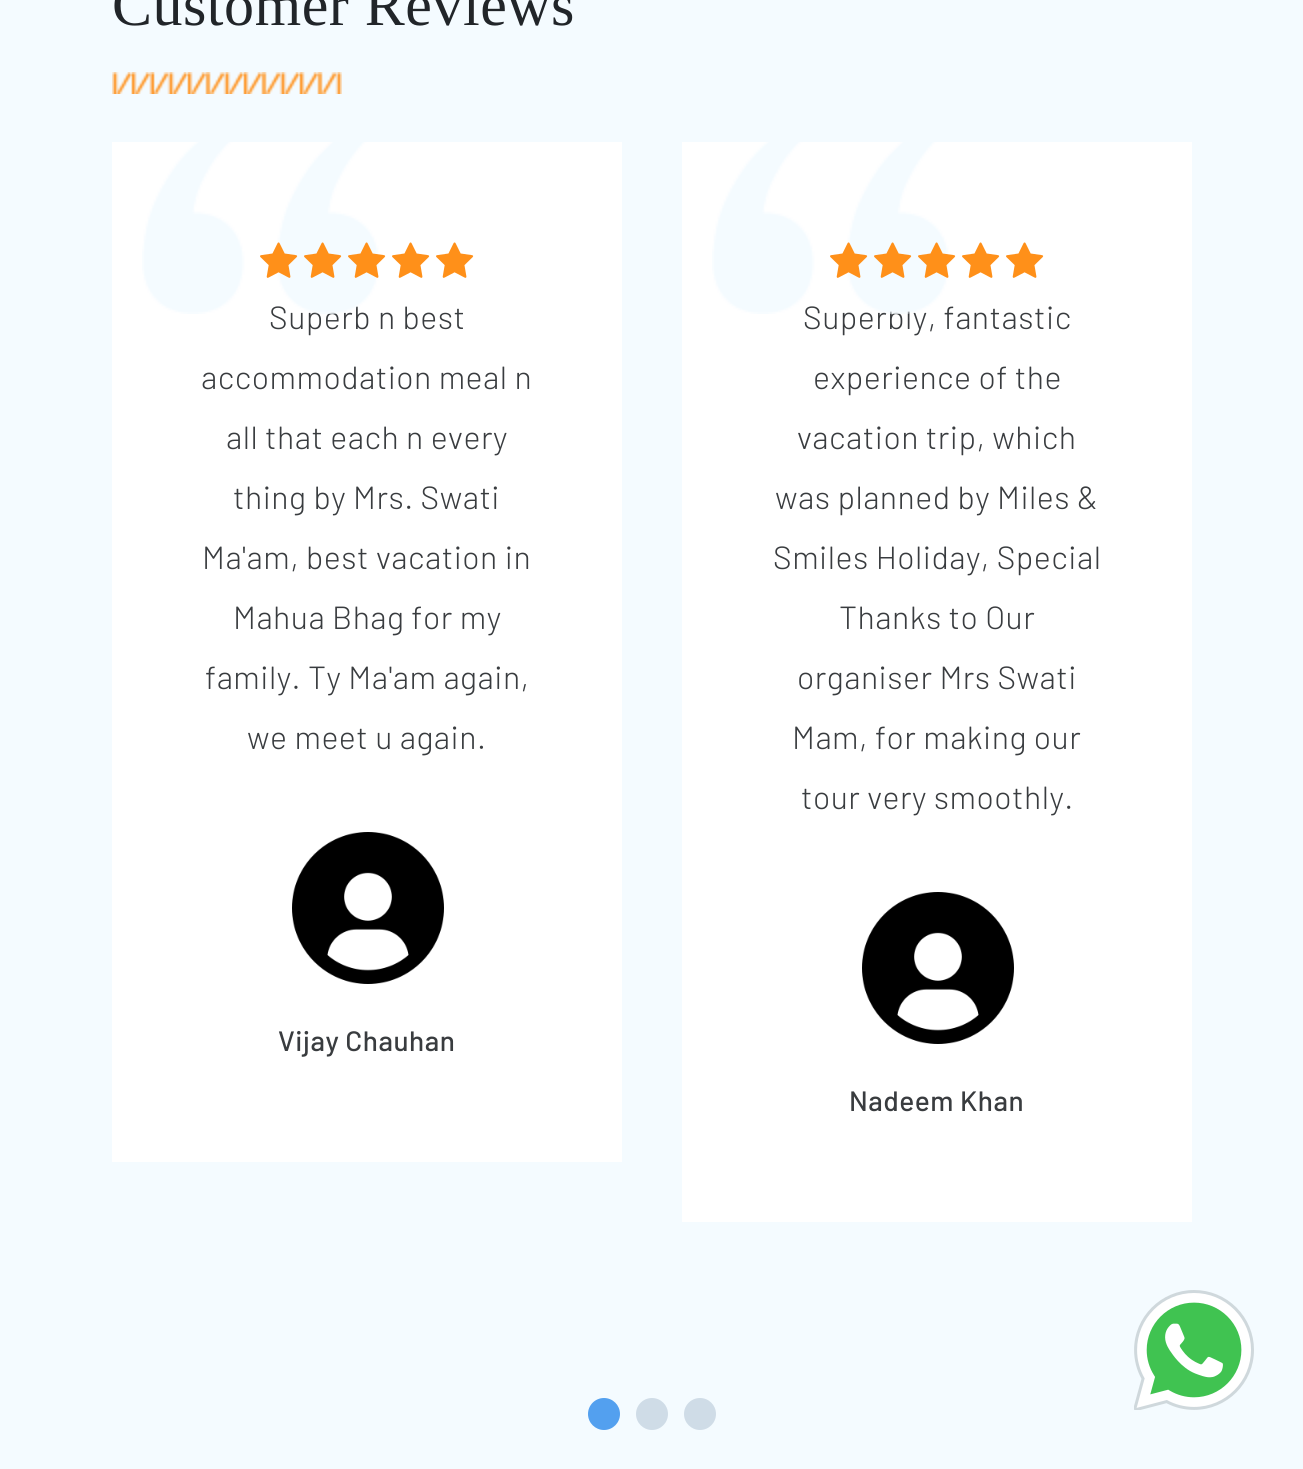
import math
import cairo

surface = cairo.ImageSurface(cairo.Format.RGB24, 1303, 1469)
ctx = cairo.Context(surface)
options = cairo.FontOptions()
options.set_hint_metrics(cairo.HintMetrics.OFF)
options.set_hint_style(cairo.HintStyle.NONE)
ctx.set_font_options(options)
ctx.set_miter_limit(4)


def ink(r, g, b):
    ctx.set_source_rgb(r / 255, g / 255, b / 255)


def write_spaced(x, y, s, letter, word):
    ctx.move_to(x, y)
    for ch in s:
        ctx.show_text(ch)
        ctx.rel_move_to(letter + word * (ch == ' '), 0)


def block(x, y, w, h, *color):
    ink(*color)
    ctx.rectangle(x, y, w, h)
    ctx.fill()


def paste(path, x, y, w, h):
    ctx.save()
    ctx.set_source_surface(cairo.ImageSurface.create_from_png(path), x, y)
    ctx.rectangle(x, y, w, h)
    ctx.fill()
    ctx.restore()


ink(244, 251, 255)
ctx.paint()
ctx.select_font_face("Liberation Serif")
ctx.set_font_size(60)
ink(33, 37, 41)
write_spaced(112, 25, "Customer Reviews", 0.5, 0)
paste("pic1.png", 112, 72, 230, 22)
block(112, 142, 510, 1020, 255, 255, 255)
ctx.select_font_face("Barlow Light")
ctx.set_font_size(32)
ink(57, 60, 63)
write_spaced(269, 329, "Superb n best", 0.5, 0)
paste("pic2.png", 142, 142, 237, 172)
paste("pic3.png", 260, 242, 38, 36)
paste("pic4.png", 304, 242, 38, 36)
paste("pic5.png", 348, 242, 38, 36)
paste("pic6.png", 392, 242, 38, 36)
paste("pic6.png", 436, 242, 38, 36)
write_spaced(201, 389, "accommodation meal n", 0.5, 0)
write_spaced(226, 449, "all that each n every", 0.5, 0)
write_spaced(233, 509, "thing by Mrs. Swati", 0.5, 0)
write_spaced(202, 569, "Ma'am, best vacation in", 0.5, 0)
write_spaced(233, 629, "Mahua Bhag for my", 0.5, 0)
write_spaced(205, 689, "family. Ty Ma'am again,", 0.5, 0)
write_spaced(247, 749, "we meet u again.", 0.5, 0)
paste("pic7.png", 292, 832, 152, 152)
ctx.select_font_face("Barlow Medium")
ctx.set_font_size(28)
write_spaced(278, 1051, "Vijay Chauhan", 0.5, 0)
block(682, 142, 510, 1080, 255, 255, 255)
ctx.select_font_face("Barlow Light")
ctx.set_font_size(32)
ink(57, 60, 63)
write_spaced(803, 329, "Superbly, fantastic", 0.5, 0)
paste("pic8.png", 712, 142, 237, 172)
paste("pic3.png", 830, 242, 38, 36)
paste("pic4.png", 874, 242, 38, 36)
paste("pic5.png", 918, 242, 38, 36)
paste("pic6.png", 962, 242, 38, 36)
paste("pic6.png", 1006, 242, 38, 36)
write_spaced(813, 389, "experience of the", 0.5, 0)
write_spaced(797, 449, "vacation trip, which", 0.5, 0)
write_spaced(775, 509, "was planned by Miles &", 0.5, 0)
write_spaced(773, 569, "Smiles Holiday, Special", 0.5, 0)
write_spaced(839, 629, "Thanks to Our", 0.5, 0)
write_spaced(797, 689, "organiser Mrs Swati", 0.5, 0)
write_spaced(792, 749, "Mam, for making our", 0.5, 0)
write_spaced(801, 809, "tour very smoothly.", 0.5, 0)
paste("pic7.png", 862, 892, 152, 152)
ctx.select_font_face("Barlow Medium")
ctx.set_font_size(28)
write_spaced(849, 1111, "Nadeem Khan", 0.5, 0)
ink(83, 160, 239)
ctx.new_path()
ctx.arc(604, 1414, 16, 0, 2 * math.pi)
ctx.fill()
ink(207, 220, 231)
ctx.arc(652, 1414, 16, 0, 2 * math.pi)
ctx.fill()
ctx.arc(700, 1414, 16, 0, 2 * math.pi)
ctx.fill()
paste("pic9.png", 1134, 1290, 120, 120)
surface.write_to_png("screenshot.png")
